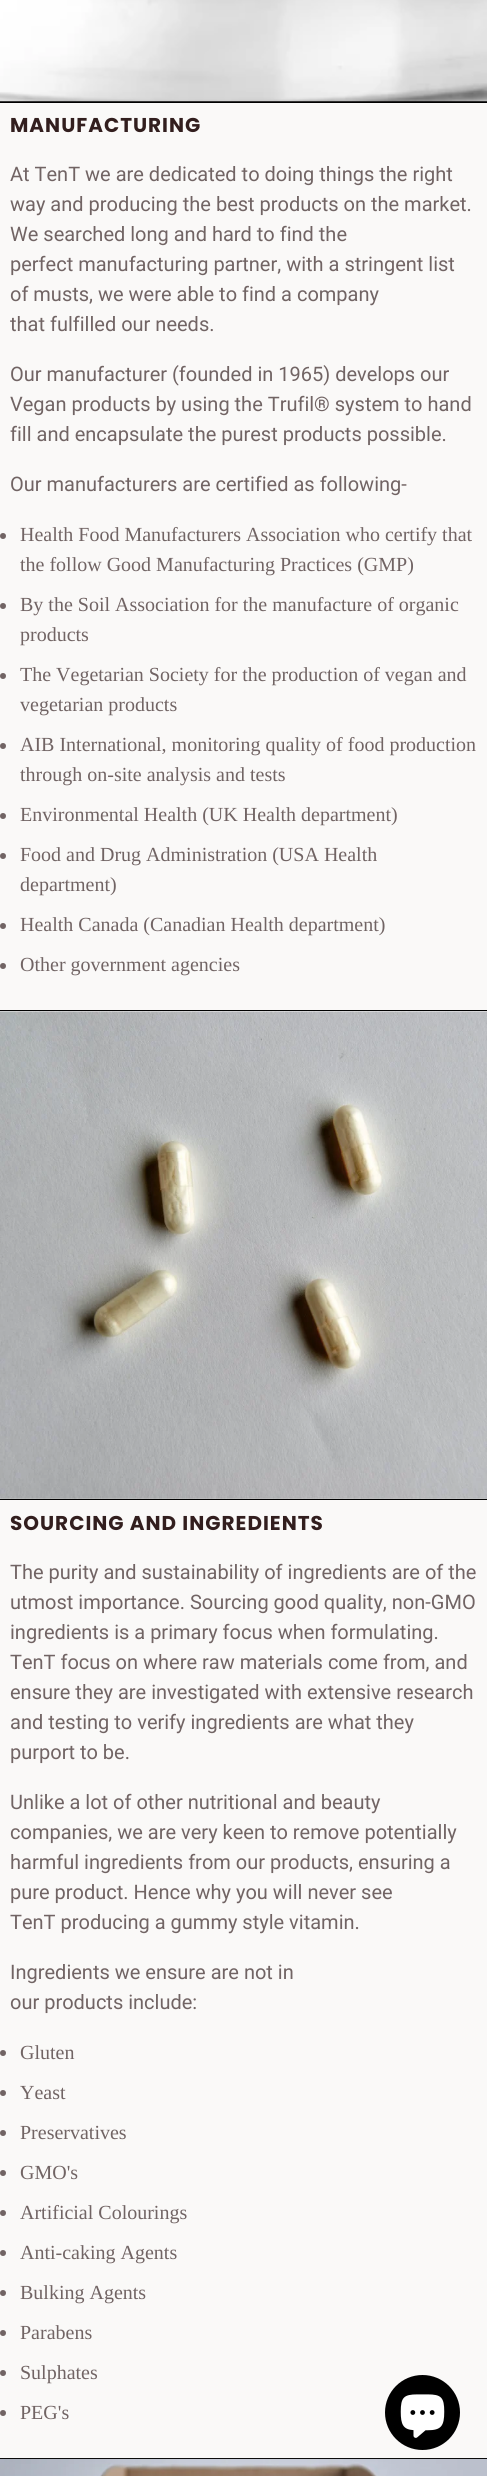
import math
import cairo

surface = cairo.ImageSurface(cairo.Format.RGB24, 487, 2476)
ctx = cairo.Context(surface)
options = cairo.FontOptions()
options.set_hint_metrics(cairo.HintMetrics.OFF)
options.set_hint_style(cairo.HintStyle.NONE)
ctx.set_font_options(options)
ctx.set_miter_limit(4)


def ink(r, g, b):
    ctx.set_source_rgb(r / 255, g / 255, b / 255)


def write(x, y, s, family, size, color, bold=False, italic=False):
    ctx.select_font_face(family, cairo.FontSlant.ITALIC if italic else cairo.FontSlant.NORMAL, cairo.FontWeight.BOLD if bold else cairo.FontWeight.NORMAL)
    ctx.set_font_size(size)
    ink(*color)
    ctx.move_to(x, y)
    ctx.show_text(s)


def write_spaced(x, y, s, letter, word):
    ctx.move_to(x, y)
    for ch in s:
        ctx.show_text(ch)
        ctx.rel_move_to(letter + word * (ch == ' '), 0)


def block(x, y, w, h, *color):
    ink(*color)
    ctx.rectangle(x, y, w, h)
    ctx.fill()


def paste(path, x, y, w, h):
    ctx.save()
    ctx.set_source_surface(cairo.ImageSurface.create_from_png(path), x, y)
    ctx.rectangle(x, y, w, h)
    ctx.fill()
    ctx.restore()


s1 = dict(family="Roboto", size=20, color=(113, 100, 100))
s2 = dict(family="Liberation Serif", size=20, color=(113, 100, 100))

ink(0, 0, 0)
ctx.paint()
paste("pic1.png", 0, 0, 487, 102)
block(0, 103, 487, 907, 250, 249, 248)
ctx.select_font_face("Poppins", cairo.FontSlant.NORMAL, cairo.FontWeight.BOLD)
ctx.set_font_size(20)
ink(50, 30, 30)
write_spaced(10, 132, "MANUFACTURING", 1, 0)
write(10, 181, "At TenT we are dedicated to doing things the right", **s1)
write(10, 211, "way and producing the best products on the market.", **s1)
write(10, 241, "We searched long and hard to find the", **s1)
write(10, 271, "perfect manufacturing partner, with a stringent list", **s1)
write(10, 301, "of musts, we were able to find a company", **s1)
write(10, 331, "that fulfilled our needs.", **s1)
write(10, 381, "Our manufacturer (founded in 1965) develops our", **s1)
write(10, 411, "Vegan products by using the Trufil® system to hand", **s1)
write(10, 441, "fill and encapsulate the purest products possible.", **s1)
write(10, 491, "Our manufacturers are certified as following-", **s1)
ctx.new_path()
ctx.arc(3, 536, 3, 0, 2 * math.pi)
ctx.fill()
write(20, 541, "Health Food Manufacturers Association who certify that", **s2)
write(20, 571, "the follow Good Manufacturing Practices (GMP)", **s2)
ctx.new_path()
ctx.arc(3, 606, 3, 0, 2 * math.pi)
ctx.fill()
write(20, 611, "By the Soil Association for the manufacture of organic", **s2)
write(20, 641, "products", **s2)
ctx.new_path()
ctx.arc(3, 676, 3, 0, 2 * math.pi)
ctx.fill()
write(20, 681, "The Vegetarian Society for the production of vegan and", **s2)
write(20, 711, "vegetarian products", **s2)
ctx.new_path()
ctx.arc(3, 746, 3, 0, 2 * math.pi)
ctx.fill()
write(20, 751, "AIB International, monitoring quality of food production", **s2)
write(20, 781, "through on-site analysis and tests", **s2)
ctx.new_path()
ctx.arc(3, 816, 3, 0, 2 * math.pi)
ctx.fill()
write(20, 821, "Environmental Health (UK Health department)", **s2)
ctx.new_path()
ctx.arc(3, 856, 3, 0, 2 * math.pi)
ctx.fill()
write(20, 861, "Food and Drug Administration (USA Health", **s2)
write(20, 891, "department)", **s2)
ctx.new_path()
ctx.arc(3, 926, 3, 0, 2 * math.pi)
ctx.fill()
write(20, 931, "Health Canada (Canadian Health department)", **s2)
ctx.new_path()
ctx.arc(3, 966, 3, 0, 2 * math.pi)
ctx.fill()
write(20, 971, "Other government agencies", **s2)
block(0, 1011, 487, 488, 250, 249, 248)
paste("pic2.png", 0, 1011, 487, 488)
block(0, 1500, 487, 958, 250, 249, 248)
ctx.select_font_face("Poppins", cairo.FontSlant.NORMAL, cairo.FontWeight.BOLD)
ink(50, 30, 30)
write_spaced(10, 1530, "SOURCING AND INGREDIENTS", 1, 0)
write(10, 1579, "The purity and sustainability of ingredients are of the", **s1)
write(10, 1609, "utmost importance. Sourcing good quality, non-GMO", **s1)
write(10, 1639, "ingredients is a primary focus when formulating.", **s1)
write(10, 1669, "TenT focus on where raw materials come from, and", **s1)
write(10, 1699, "ensure they are investigated with extensive research", **s1)
write(10, 1729, "and testing to verify ingredients are what they", **s1)
write(10, 1759, "purport to be.", **s1)
write(10, 1809, "Unlike a lot of other nutritional and beauty", **s1)
write(10, 1839, "companies, we are very keen to remove potentially", **s1)
write(10, 1869, "harmful ingredients from our products, ensuring a", **s1)
write(10, 1899, "pure product. Hence why you will never see", **s1)
write(10, 1929, "TenT producing a gummy style vitamin.", **s1)
write(10, 1979, "Ingredients we ensure are not in", **s1)
write(10, 2009, "our products include:", **s1)
ctx.new_path()
ctx.arc(3, 2053, 3, 0, 2 * math.pi)
ctx.fill()
write(20, 2059, "Gluten", **s2)
ctx.new_path()
ctx.arc(3, 2093, 3, 0, 2 * math.pi)
ctx.fill()
write(20, 2099, "Yeast", **s2)
ctx.new_path()
ctx.arc(3, 2133, 3, 0, 2 * math.pi)
ctx.fill()
write(20, 2139, "Preservatives", **s2)
ctx.new_path()
ctx.arc(3, 2173, 3, 0, 2 * math.pi)
ctx.fill()
write(20, 2179, "GMO's", **s2)
ctx.new_path()
ctx.arc(3, 2213, 3, 0, 2 * math.pi)
ctx.fill()
write(20, 2219, "Artificial Colourings", **s2)
ctx.new_path()
ctx.arc(3, 2253, 3, 0, 2 * math.pi)
ctx.fill()
write(20, 2259, "Anti-caking Agents", **s2)
ctx.new_path()
ctx.arc(3, 2293, 3, 0, 2 * math.pi)
ctx.fill()
write(20, 2299, "Bulking Agents", **s2)
ctx.new_path()
ctx.arc(3, 2333, 3, 0, 2 * math.pi)
ctx.fill()
write(20, 2339, "Parabens", **s2)
ctx.new_path()
ctx.arc(3, 2373, 3, 0, 2 * math.pi)
ctx.fill()
write(20, 2379, "Sulphates", **s2)
ctx.new_path()
ctx.arc(3, 2413, 3, 0, 2 * math.pi)
ctx.fill()
write(20, 2419, "PEG's", **s2)
paste("pic3.png", 0, 2458, 487, 18)
ink(0, 0, 0)
ctx.arc(422.5, 2412.5, 37.5, 0, 2 * math.pi)
ctx.fill()
paste("pic4.png", 400, 2394, 45, 44)
surface.write_to_png("screenshot.png")
